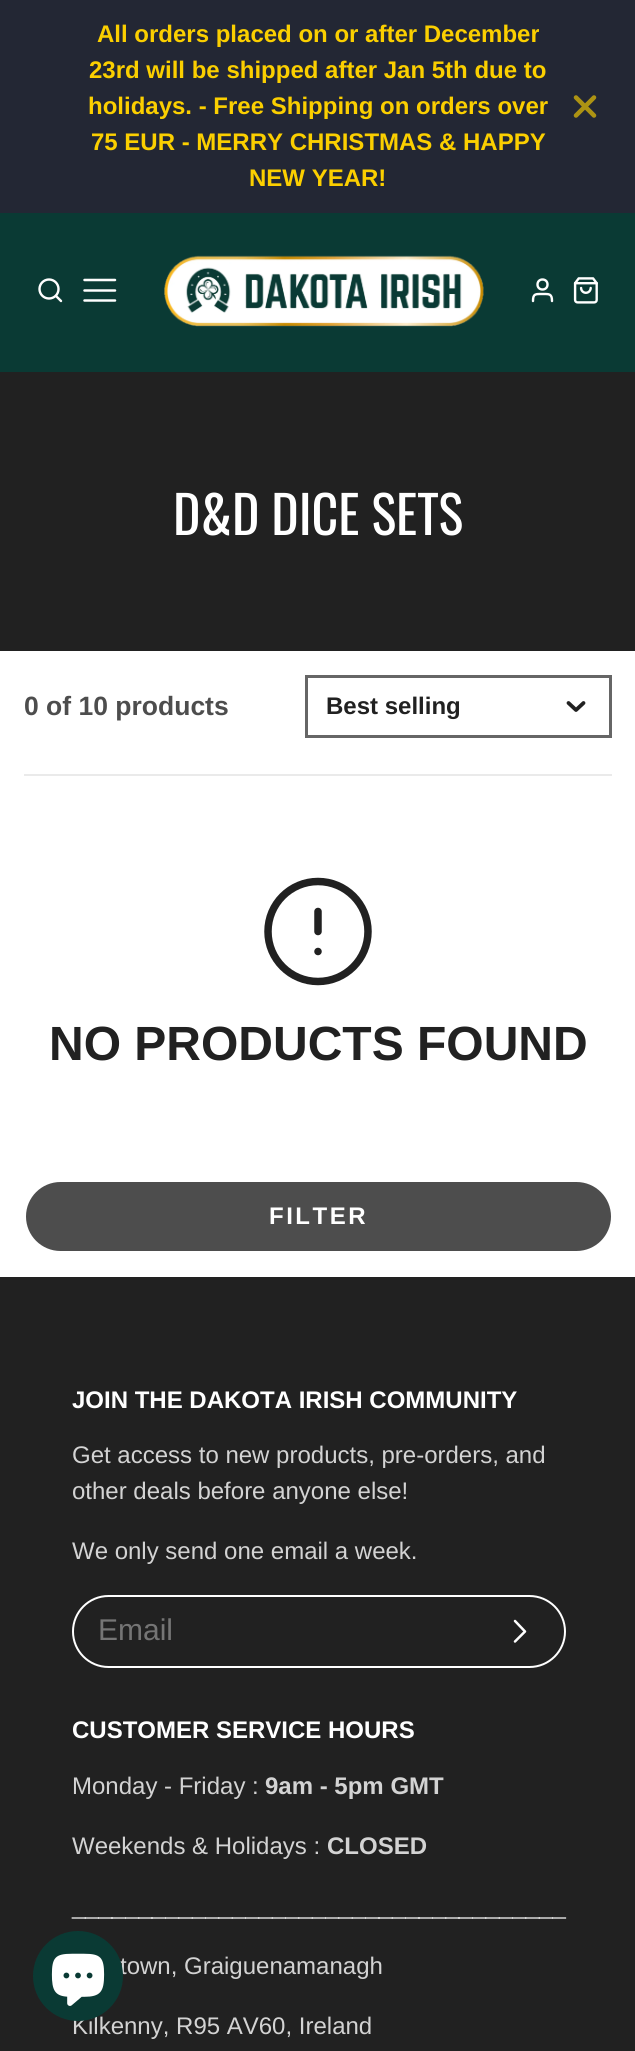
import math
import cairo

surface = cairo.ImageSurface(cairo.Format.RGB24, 635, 2051)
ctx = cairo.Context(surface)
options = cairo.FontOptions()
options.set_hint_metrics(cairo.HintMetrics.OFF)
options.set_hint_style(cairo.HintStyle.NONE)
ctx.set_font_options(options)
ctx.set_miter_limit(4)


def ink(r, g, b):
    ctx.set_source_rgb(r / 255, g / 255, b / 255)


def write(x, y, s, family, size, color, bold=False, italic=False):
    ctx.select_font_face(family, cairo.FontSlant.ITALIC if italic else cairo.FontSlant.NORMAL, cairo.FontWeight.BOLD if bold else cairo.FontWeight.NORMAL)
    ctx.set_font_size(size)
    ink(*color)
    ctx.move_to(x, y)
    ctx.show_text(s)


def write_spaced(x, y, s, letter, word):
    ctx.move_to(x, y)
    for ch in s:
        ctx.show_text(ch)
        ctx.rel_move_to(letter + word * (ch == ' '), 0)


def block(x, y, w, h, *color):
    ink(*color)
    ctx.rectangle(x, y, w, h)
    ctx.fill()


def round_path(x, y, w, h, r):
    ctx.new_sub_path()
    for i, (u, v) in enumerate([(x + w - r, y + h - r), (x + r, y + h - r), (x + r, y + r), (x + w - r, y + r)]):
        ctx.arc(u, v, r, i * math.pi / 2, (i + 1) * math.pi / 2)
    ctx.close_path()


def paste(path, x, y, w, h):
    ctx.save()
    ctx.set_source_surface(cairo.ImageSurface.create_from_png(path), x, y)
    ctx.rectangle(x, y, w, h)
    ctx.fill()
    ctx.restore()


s1 = dict(family="Liberation Sans", size=24, color=(251, 207, 0), bold=True)
s2 = dict(family="Oswald", size=52, color=(255, 255, 255))
s3 = dict(family="Liberation Sans", size=26.5, color=(77, 77, 77), bold=True)
s4 = dict(family="Liberation Sans", size=24, color=(33, 33, 33), bold=True)
s5 = dict(family="Liberation Sans", size=48, color=(33, 33, 33), bold=True)
s6 = dict(family="Liberation Sans", size=24, color=(255, 255, 255), bold=True)
s7 = dict(family="Liberation Sans", size=24, color=(211, 211, 211))
s8 = dict(family="Liberation Sans", size=30, color=(117, 117, 117))
s9 = dict(family="Liberation Sans", size=24, color=(211, 211, 211), bold=True)

ink(255, 255, 255)
ctx.paint()
block(0, 0, 635, 213, 35, 39, 52)
write(97, 42, "All orders placed on or after December", **s1)
write(89, 78, "23rd will be shipped after Jan 5th due to", **s1)
write(88, 114, "holidays. - Free Shipping on orders over", **s1)
write(91, 150, "75 EUR - MERRY CHRISTMAS & HAPPY", **s1)
write(249, 186, "NEW YEAR!", **s1)
ctx.new_path()
ctx.move_to(594, 97.5)
ctx.line_to(576, 115.5)
ctx.move_to(576, 97.5)
ctx.line_to(594, 115.5)
ink(173, 147, 19)
ctx.set_line_width(4.5)
ctx.set_line_cap(cairo.LineCap.ROUND)
ctx.set_line_join(cairo.LineJoin.ROUND)
ctx.stroke()
block(0, 213, 635, 159, 10, 58, 52)
ctx.arc(49, 289, 9.5, 0, 2 * math.pi)
ink(255, 255, 255)
ctx.set_line_width(2.4)
ctx.set_line_cap(cairo.LineCap.BUTT)
ctx.set_line_join(cairo.LineJoin.MITER)
ctx.stroke()
ctx.new_path()
ctx.move_to(61, 301)
ctx.line_to(56, 296)
ctx.set_line_cap(cairo.LineCap.ROUND)
ctx.set_line_join(cairo.LineJoin.ROUND)
ctx.stroke()
ctx.new_path()
ctx.move_to(84.5, 290.5)
ctx.line_to(115, 290.5)
ctx.move_to(84.5, 280)
ctx.line_to(115, 280)
ctx.move_to(84.5, 300.5)
ctx.line_to(115, 300.5)
ctx.set_line_width(2.5)
ctx.stroke()
paste("pic1.png", 164, 255, 320, 72)
ctx.arc(542.5, 284.5, 5, 0, 2 * math.pi)
ctx.set_line_width(2.4)
ctx.set_line_cap(cairo.LineCap.BUTT)
ctx.set_line_join(cairo.LineJoin.MITER)
ctx.stroke()
ctx.new_path()
ctx.move_to(552, 301)
ctx.curve_to(552, 293.5, 549, 294, 542.5, 294)
ctx.curve_to(535.5, 294, 533, 293.5, 533, 301)
ctx.set_line_cap(cairo.LineCap.ROUND)
ctx.set_line_join(cairo.LineJoin.ROUND)
ctx.stroke()
paste("pic2.png", 573, 277, 25, 27)
block(0, 372, 635, 279, 33, 33, 33)
write(173, 535, "D&D DICE SETS", **s2)
block(24, 774, 588, 2, 234, 234, 234)
write(24, 715, "0 of 10 products", **s3)
ctx.rectangle(306.5, 676.5, 304, 60)
ink(102, 102, 102)
ctx.set_line_width(3)
ctx.set_line_cap(cairo.LineCap.BUTT)
ctx.set_line_join(cairo.LineJoin.MITER)
ctx.stroke()
write(326, 714, "Best selling", **s4)
ctx.new_path()
ctx.move_to(568.5, 703)
ctx.line_to(576, 710)
ctx.line_to(583.5, 703)
ctx.set_line_width(3.8)
ctx.set_line_cap(cairo.LineCap.ROUND)
ctx.set_line_join(cairo.LineJoin.ROUND)
ctx.stroke()
ctx.arc(318, 931.5, 50, 0, 2 * math.pi)
ctx.set_line_width(7.5)
ctx.set_line_cap(cairo.LineCap.BUTT)
ctx.set_line_join(cairo.LineJoin.MITER)
ctx.stroke()
ctx.new_path()
ctx.move_to(318, 911.5)
ctx.line_to(318, 931.5)
ctx.move_to(318, 951.5)
ctx.line_to(318, 951.5)
ctx.set_line_cap(cairo.LineCap.ROUND)
ctx.set_line_join(cairo.LineJoin.ROUND)
ctx.stroke()
write(49, 1060, "NO PRODUCTS FOUND", **s5)
ink(77, 77, 77)
round_path(26, 1182, 585, 69, 34.5)
ctx.fill()
ctx.set_font_size(24)
ink(255, 255, 255)
write_spaced(269, 1224, "FILTER", 2.5, 0)
block(0, 1277, 635, 774, 33, 33, 33)
write(72, 1408, "JOIN THE DAKOTA IRISH COMMUNITY", **s6)
write(72, 1463, "Get access to new products, pre-orders, and", **s7)
write(72, 1499, "other deals before anyone else!", **s7)
write(72, 1559, "We only send one email a week.", **s7)
round_path(73, 1596, 492, 71, 35.5)
ink(255, 255, 255)
ctx.set_line_width(2)
ctx.set_line_cap(cairo.LineCap.BUTT)
ctx.set_line_join(cairo.LineJoin.MITER)
ctx.stroke()
write(98, 1640, "Email", **s8)
ctx.new_path()
ctx.move_to(515, 1641.5)
ctx.line_to(525, 1631.5)
ctx.line_to(515, 1621)
ink(255, 255, 255)
ctx.set_line_width(2.5)
ctx.set_line_cap(cairo.LineCap.ROUND)
ctx.set_line_join(cairo.LineJoin.ROUND)
ctx.stroke()
write(72, 1738, "CUSTOMER SERVICE HOURS", **s6)
write(72, 1794, "Monday - Friday :", **s7)
write(265, 1794, "9am - 5pm GMT", **s9)
write(72, 1854, "Weekends & Holidays :", **s7)
write(327, 1854, "CLOSED", **s9)
write(72, 1914, "_____________________________________", **s7)
write(120, 1974, "town, Graiguenamanagh", **s7)
write(72, 2034, "Kilkenny, R95 AV60, Ireland", **s7)
ink(10, 58, 52)
ctx.new_path()
ctx.arc(78, 1976, 45, 0, 2 * math.pi)
ctx.fill()
paste("pic3.png", 51, 1953, 54, 53)
surface.write_to_png("screenshot.png")
